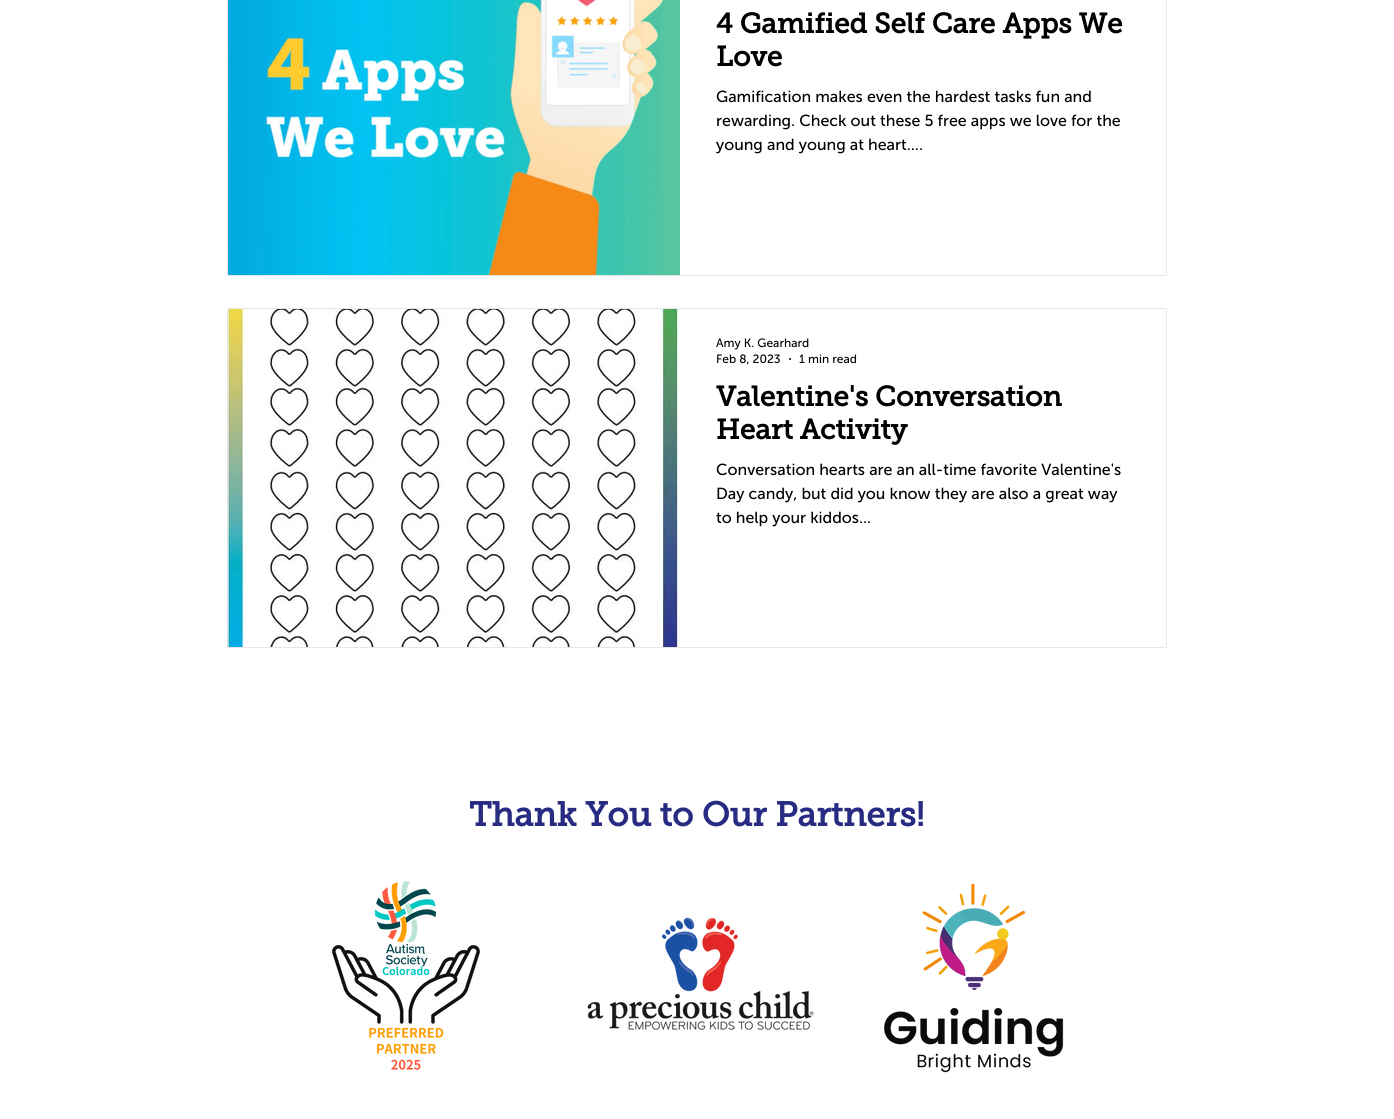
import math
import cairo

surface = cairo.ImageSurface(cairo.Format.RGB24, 1394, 1119)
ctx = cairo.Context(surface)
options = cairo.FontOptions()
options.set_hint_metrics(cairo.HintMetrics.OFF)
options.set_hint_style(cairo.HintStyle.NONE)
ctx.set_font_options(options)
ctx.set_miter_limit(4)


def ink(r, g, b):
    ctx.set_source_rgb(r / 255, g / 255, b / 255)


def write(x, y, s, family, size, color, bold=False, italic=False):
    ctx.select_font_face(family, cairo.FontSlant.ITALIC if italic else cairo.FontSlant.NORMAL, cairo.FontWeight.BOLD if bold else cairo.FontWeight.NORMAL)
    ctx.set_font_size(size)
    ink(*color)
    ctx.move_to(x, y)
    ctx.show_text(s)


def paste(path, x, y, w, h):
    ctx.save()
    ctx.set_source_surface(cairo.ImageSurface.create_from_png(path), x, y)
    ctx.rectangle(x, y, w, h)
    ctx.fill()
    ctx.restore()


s1 = dict(family="Museo Slab", size=28, color=(0, 0, 0), bold=True)
s2 = dict(family="Museo Sans", size=16, color=(0, 0, 0))
s3 = dict(family="Museo Sans", size=12, color=(0, 0, 0))
s4 = dict(family="Museo Slab", size=34, color=(40, 43, 130), bold=True)

ink(255, 255, 255)
ctx.paint()
ctx.rectangle(227.5, -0.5, 939, 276)
ink(232, 230, 230)
ctx.set_line_width(1)
ctx.stroke()
paste("pic1.png", 228, 0, 452, 275)
write(716, 33, "4 Gamified Self Care Apps We", **s1)
write(716, 66, "Love", **s1)
write(716, 102, "Gamification makes even the hardest tasks fun and", **s2)
write(716, 126, "rewarding. Check out these 5 free apps we love for the", **s2)
write(716, 150, "young and young at heart....", **s2)
ctx.rectangle(227.5, 308.5, 939, 339)
ink(232, 230, 230)
ctx.stroke()
paste("pic2.png", 228, 309, 452, 338)
write(716, 347, "Amy K. Gearhard", **s3)
write(716, 363, "Feb 8, 2023", **s3)
ctx.new_path()
ctx.arc(790, 359, 1, 0, 2 * math.pi)
ctx.fill()
write(799, 363, "1 min read", **s3)
write(716, 406, "Valentine's Conversation", **s1)
write(716, 439, "Heart Activity", **s1)
write(716, 475, "Conversation hearts are an all-time favorite Valentine's", **s2)
write(716, 499, "Day candy, but did you know they are also a great way", **s2)
write(716, 523, "to help your kiddos...", **s2)
write(469, 826, "Thank You to Our Partners!", **s4)
paste("pic3.png", 332, 881, 148, 189)
paste("pic4.png", 587, 917, 227, 113)
paste("pic5.png", 884, 884, 180, 189)
surface.write_to_png("screenshot.png")
